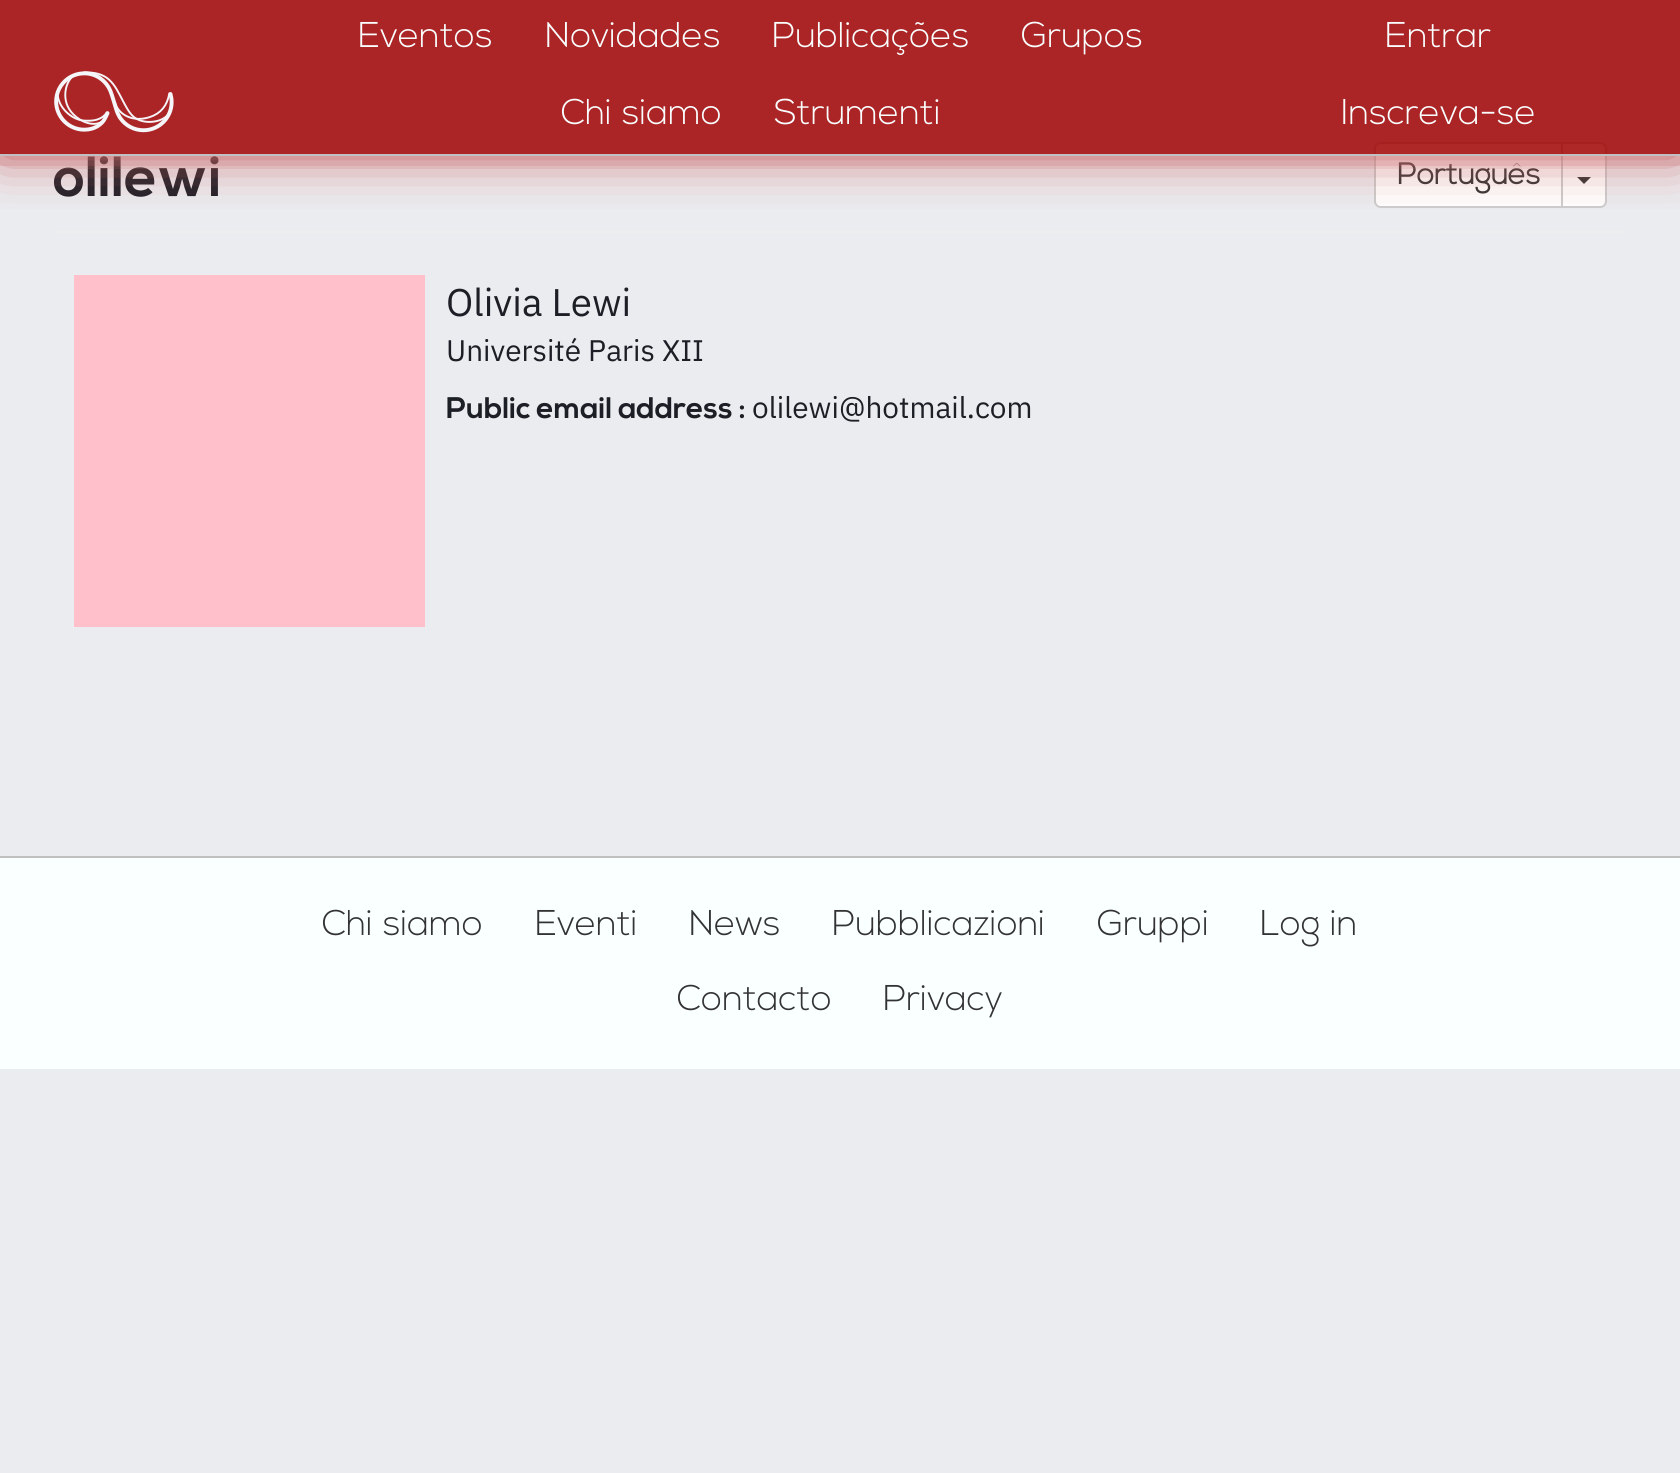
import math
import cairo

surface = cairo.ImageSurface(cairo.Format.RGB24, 1680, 1473)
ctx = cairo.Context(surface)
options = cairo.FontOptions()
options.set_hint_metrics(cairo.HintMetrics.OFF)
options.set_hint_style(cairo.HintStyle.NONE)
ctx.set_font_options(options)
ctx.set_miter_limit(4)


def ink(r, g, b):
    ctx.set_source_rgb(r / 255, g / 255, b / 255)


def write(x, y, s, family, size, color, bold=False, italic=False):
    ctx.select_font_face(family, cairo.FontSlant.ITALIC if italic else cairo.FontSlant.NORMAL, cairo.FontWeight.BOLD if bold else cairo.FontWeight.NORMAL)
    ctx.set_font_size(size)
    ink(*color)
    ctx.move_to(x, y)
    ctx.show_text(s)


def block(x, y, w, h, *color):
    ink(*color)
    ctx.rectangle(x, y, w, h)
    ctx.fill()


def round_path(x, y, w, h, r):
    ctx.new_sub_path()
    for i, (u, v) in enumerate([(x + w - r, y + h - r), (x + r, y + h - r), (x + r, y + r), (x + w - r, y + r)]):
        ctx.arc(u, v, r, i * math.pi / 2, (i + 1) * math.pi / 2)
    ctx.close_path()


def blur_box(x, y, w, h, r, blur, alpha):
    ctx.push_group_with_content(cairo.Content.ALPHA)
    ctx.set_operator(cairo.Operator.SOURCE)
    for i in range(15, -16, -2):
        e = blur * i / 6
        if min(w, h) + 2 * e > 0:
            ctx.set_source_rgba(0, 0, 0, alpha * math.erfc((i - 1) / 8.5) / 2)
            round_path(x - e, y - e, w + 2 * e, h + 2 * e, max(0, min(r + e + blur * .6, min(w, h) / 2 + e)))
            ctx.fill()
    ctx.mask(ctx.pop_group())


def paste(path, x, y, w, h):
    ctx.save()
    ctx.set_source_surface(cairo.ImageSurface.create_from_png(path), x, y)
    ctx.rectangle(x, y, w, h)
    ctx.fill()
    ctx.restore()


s1 = dict(family="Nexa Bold", size=56.5, color=(29, 31, 38), bold=True)
s2 = dict(family="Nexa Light", size=29.75, color=(51, 51, 51), bold=True)
s3 = dict(family="Nexa Light Light", size=35.75, color=(250, 255, 255))
s4 = dict(family="IBM Plex Sans", size=38.5, color=(29, 31, 38))
s5 = dict(family="IBM Plex Sans", size=29.75, color=(29, 31, 38))
s6 = dict(family="Nexa Bold", size=29.75, color=(29, 31, 38), bold=True)
s7 = dict(family="Nexa Light Light", size=35.75, color=(51, 51, 51))

ink(235, 236, 240)
ctx.paint()
write(53, 196, "olilewi", **s1)
ink(255, 255, 255)
ctx.new_path()
ctx.move_to(1381, 143)
ctx.line_to(1562, 143)
ctx.line_to(1562, 207)
ctx.line_to(1381, 207)
ctx.curve_to(1377.5, 207, 1375, 204.5, 1375, 201)
ctx.line_to(1375, 149)
ctx.curve_to(1375, 145.5, 1377.5, 143, 1381, 143)
ctx.close_path()
ctx.fill_preserve()
ink(204, 204, 204)
ctx.stroke()
write(1397, 184, "Português", **s2)
ink(255, 255, 255)
ctx.new_path()
ctx.move_to(1562, 143)
ctx.line_to(1600, 143)
ctx.curve_to(1603.5, 143, 1606, 145.5, 1606, 149)
ctx.line_to(1606, 201)
ctx.curve_to(1606, 204.5, 1603.5, 207, 1600, 207)
ctx.line_to(1562, 207)
ctx.close_path()
ctx.fill_preserve()
ink(204, 204, 204)
ctx.stroke()
ctx.set_source_rgba(0.784, 0.392, 0.392, 0.2)
ctx.rectangle(0, 156, 1680, 10)
ctx.fill()
block(53, 231, 1575, 2, 238, 238, 238)
ink(51, 51, 51)
ctx.new_path()
ctx.move_to(1577, 177)
ctx.line_to(1591, 177)
ctx.line_to(1584, 184)
ctx.close_path()
ctx.fill()
ctx.save()
ctx.rectangle(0, 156, 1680, 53)
ctx.clip()
ink(200, 100, 100)
blur_box(0, 0, 1680, 156, 0, 26, 1)
ctx.restore()
ctx.set_source_rgba(0.631, 0, 0, 0.84)
ctx.rectangle(0, 0, 1680, 154)
ctx.fill()
block(0, 154, 1680, 2, 192, 192, 192)
paste("pic1.png", 54, 71, 120, 62)
write(358, 47, "Eventos", **s3)
write(545, 47, "Novidades", **s3)
write(772, 47, "Publicações", **s3)
write(1021, 47, "Grupos", **s3)
write(561, 124, "Chi siamo", **s3)
write(774, 124, "Strumenti", **s3)
write(1385, 47, "Entrar", **s3)
write(1341, 124, "Inscreva-se", **s3)
block(74, 275, 351, 352, 255, 192, 203)
write(446, 316, "Olivia Lewi", **s4)
write(446, 361, "Université Paris XII", **s5)
write(446, 418, "Public email address :", **s6)
write(752, 418, "olilewi@hotmail.com", **s5)
block(0, 858, 1680, 211, 250, 255, 255)
block(0, 856, 1680, 2, 192, 192, 192)
write(322, 935, "Chi siamo", **s7)
write(535, 935, "Eventi", **s7)
write(689, 935, "News", **s7)
write(832, 935, "Pubblicazioni", **s7)
write(1097, 935, "Gruppi", **s7)
write(1260, 935, "Log in", **s7)
write(677, 1010, "Contacto", **s7)
write(883, 1010, "Privacy", **s7)
surface.write_to_png("screenshot.png")
